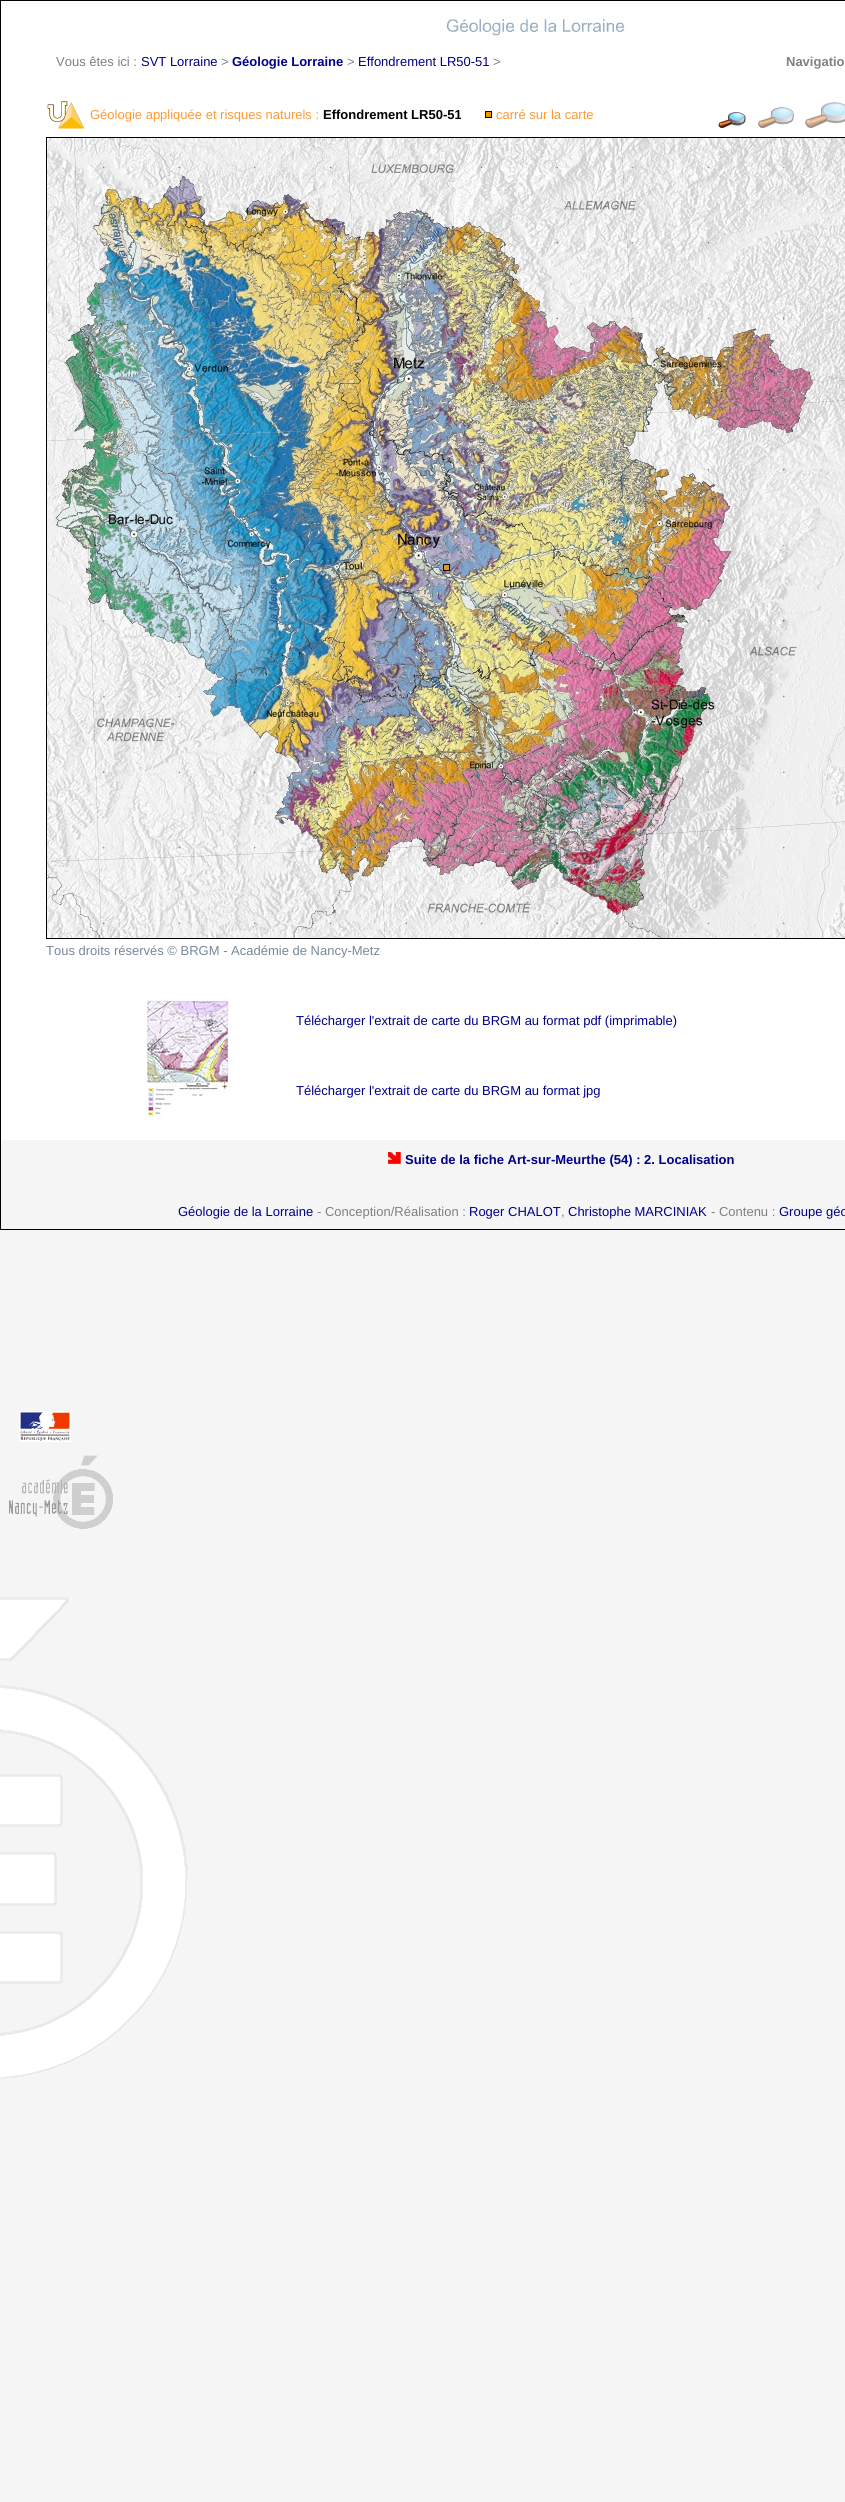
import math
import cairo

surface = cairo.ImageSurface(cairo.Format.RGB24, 845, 2502)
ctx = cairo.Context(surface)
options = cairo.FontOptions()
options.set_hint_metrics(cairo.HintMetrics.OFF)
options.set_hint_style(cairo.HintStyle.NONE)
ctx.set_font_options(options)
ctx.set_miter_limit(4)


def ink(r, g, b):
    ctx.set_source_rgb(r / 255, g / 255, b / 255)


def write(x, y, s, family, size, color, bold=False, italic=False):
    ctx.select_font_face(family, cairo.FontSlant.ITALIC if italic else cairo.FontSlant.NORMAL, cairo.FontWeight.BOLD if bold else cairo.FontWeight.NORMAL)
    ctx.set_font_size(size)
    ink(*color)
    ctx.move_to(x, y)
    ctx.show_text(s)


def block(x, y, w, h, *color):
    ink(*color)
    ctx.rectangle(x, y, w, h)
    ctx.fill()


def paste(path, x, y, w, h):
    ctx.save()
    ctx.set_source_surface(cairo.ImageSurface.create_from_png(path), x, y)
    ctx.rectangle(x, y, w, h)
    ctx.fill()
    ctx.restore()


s1 = dict(family="Liberation Sans", size=13, color=(128, 128, 128))
s2 = dict(family="Liberation Sans", size=13, color=(0, 0, 139))
s3 = dict(family="Liberation Sans", size=13, color=(0, 0, 139), bold=True)
s4 = dict(family="Liberation Sans", size=13, color=(128, 128, 128), bold=True)
s5 = dict(family="Liberation Sans", size=13, color=(255, 153, 51))
s6 = dict(family="Liberation Sans", size=13, color=(0, 0, 0), bold=True)
s7 = dict(family="Liberation Sans", size=13, color=(119, 136, 153))

ink(245, 245, 245)
ctx.paint()
paste("pic1.png", 0, 1411, 188, 668)
block(1, 1, 844, 1139, 255, 255, 255)
ctx.rectangle(0.5, 0.5, 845, 1229)
ink(0, 0, 0)
ctx.set_line_width(1)
ctx.stroke()
paste("pic2.png", 445, 17, 184, 24)
write(56, 66, "Vous êtes ici :", **s1)
write(141, 66, "SVT Lorraine", **s2)
write(221, 66, ">", **s1)
write(232, 66, "Géologie Lorraine", **s3)
write(347, 66, ">", **s1)
write(358, 66, "Effondrement LR50-51", **s2)
write(493, 66, ">", **s1)
write(786, 66, "Navigatio", **s4)
paste("pic3.png", 47, 101, 38, 28)
write(90, 119, "Géologie appliquée et risques naturels :", **s5)
write(323, 119, "Effondrement LR50-51", **s6)
paste("pic4.png", 485, 111, 7, 7)
write(496, 119, "carré sur la carte", **s5)
paste("pic5.png", 718, 112, 28, 16)
paste("pic6.png", 758, 107, 36, 21)
paste("pic7.png", 805, 102, 40, 26)
ctx.rectangle(46.5, 137.5, 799, 801)
ink(0, 0, 0)
ctx.stroke()
paste("pic8.png", 47, 138, 798, 800)
write(46, 955, "Tous droits réservés © BRGM - Académie de Nancy-Metz", **s7)
paste("pic9.png", 146, 1000, 83, 120)
write(296, 1025, "Télécharger l'extrait de carte du BRGM au format pdf (imprimable)", **s2)
write(296, 1095, "Télécharger l'extrait de carte du BRGM au format jpg", **s2)
paste("pic10.png", 388, 1152, 13, 12)
write(405, 1164, "Suite de la fiche Art-sur-Meurthe (54) : 2. Localisation", **s3)
write(178, 1216, "Géologie de la Lorraine", **s2)
write(317, 1216, "- Conception/Réalisation :", **s1)
write(469, 1216, "Roger CHALOT", **s2)
write(561, 1216, ",", **s1)
write(568, 1216, "Christophe MARCINIAK", **s2)
write(711, 1216, "- Contenu :", **s1)
write(779, 1216, "Groupe géo", **s2)
surface.write_to_png("screenshot.png")
